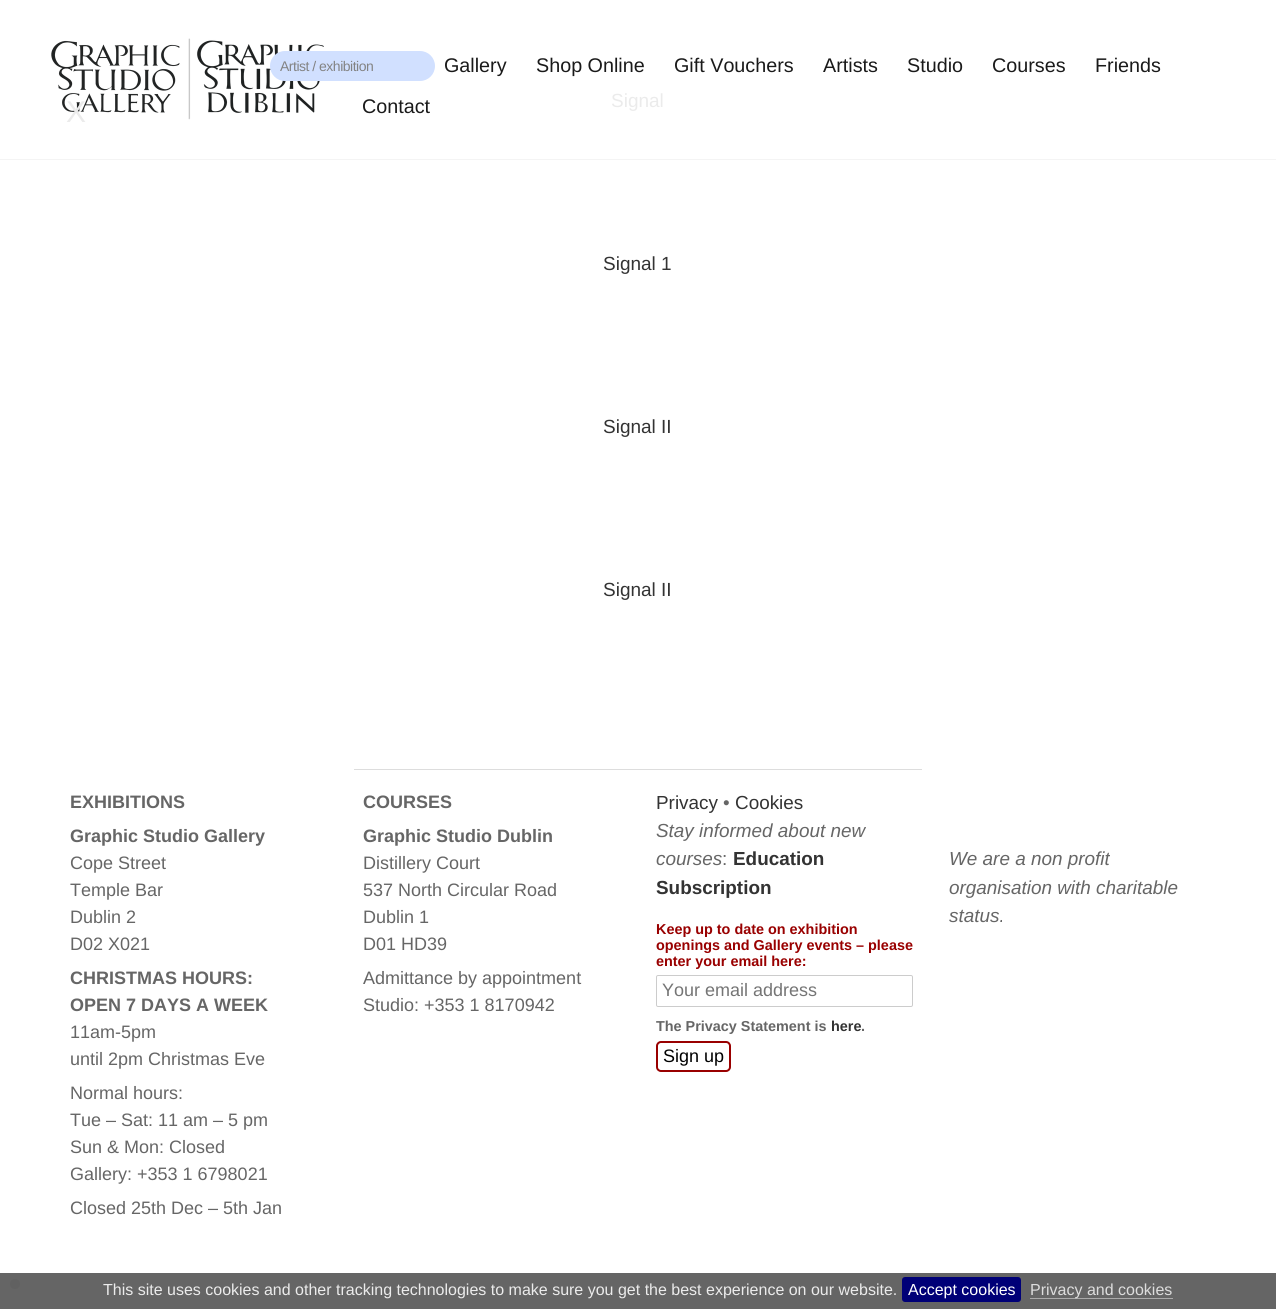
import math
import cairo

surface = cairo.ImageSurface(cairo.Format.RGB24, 1276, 1309)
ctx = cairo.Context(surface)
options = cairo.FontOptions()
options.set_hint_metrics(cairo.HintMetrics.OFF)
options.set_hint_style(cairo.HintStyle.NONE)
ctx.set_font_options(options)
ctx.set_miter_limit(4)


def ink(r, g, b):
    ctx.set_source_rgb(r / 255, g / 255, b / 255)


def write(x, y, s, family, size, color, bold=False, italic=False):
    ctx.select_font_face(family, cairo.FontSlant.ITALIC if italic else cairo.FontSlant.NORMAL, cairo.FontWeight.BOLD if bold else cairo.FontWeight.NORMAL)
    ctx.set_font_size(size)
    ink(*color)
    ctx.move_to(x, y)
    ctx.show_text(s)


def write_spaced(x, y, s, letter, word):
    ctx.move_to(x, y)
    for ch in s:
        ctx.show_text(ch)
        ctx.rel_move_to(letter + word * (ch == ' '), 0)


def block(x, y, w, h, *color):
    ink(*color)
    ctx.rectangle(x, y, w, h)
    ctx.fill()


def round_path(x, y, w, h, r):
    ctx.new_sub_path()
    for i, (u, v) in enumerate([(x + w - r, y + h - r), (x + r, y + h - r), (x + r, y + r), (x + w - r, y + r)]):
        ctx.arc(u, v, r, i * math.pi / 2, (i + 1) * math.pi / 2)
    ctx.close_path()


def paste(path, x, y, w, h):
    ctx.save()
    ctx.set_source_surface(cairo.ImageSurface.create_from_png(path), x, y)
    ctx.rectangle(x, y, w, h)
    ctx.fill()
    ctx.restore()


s1 = dict(family="Liberation Sans", size=19.75, color=(26, 26, 26))
s2 = dict(family="Liberation Sans", size=30, color=(235, 235, 235))
s3 = dict(family="Liberation Sans", size=19, color=(235, 235, 235))
s4 = dict(family="Liberation Sans", size=19, color=(51, 51, 51))
s5 = dict(family="Liberation Sans", size=18, color=(102, 102, 102), bold=True)
s6 = dict(family="Liberation Sans", size=18, color=(102, 102, 102))
s7 = dict(family="Liberation Sans", size=18.9, color=(51, 51, 51))
s8 = dict(family="Liberation Sans", size=18.9, color=(102, 102, 102))
s9 = dict(family="Liberation Sans", size=18.9, color=(102, 102, 102), italic=True)
s10 = dict(family="Liberation Sans", size=18.9, color=(51, 51, 51), bold=True)
s11 = dict(family="Liberation Sans", size=14.4, color=(153, 0, 0), bold=True)
s12 = dict(family="Liberation Sans", size=18, color=(117, 117, 117))
s13 = dict(family="Liberation Sans", size=14.4, color=(102, 102, 102), bold=True)
s14 = dict(family="Liberation Sans", size=14.4, color=(51, 51, 51), bold=True)
s15 = dict(family="Liberation Sans", size=18, color=(0, 0, 0))
s16 = dict(family="Liberation Sans", size=16, color=(235, 235, 235))
s17 = dict(family="Liberation Sans", size=16, color=(255, 255, 255))
s18 = dict(family="Liberation Sans", size=16, color=(221, 221, 221))

ink(255, 255, 255)
ctx.paint()
block(0, 1273, 1276, 36, 101, 101, 101)
block(0, 159, 1276, 1, 244, 244, 244)
paste("pic1.png", 51, 38, 273, 82)
ink(209, 224, 255)
round_path(270, 51, 165, 30, 15)
ctx.fill()
ctx.select_font_face("Liberation Sans")
ctx.set_font_size(14)
ink(131, 131, 131)
write_spaced(280, 71, "Artist / exhibition", -0.5, 0)
write(444, 72, "Gallery", **s1)
write(536, 72, "Shop Online", **s1)
write(674, 72, "Gift Vouchers", **s1)
write(823, 72, "Artists", **s1)
write(907, 72, "Studio", **s1)
write(992, 72, "Courses", **s1)
write(1095, 72, "Friends", **s1)
write(362, 113, "Contact", **s1)
write(66, 122, "X", **s2)
write(611, 107, "Signal", **s3)
write(603, 270, "Signal 1", **s4)
write(603, 433, "Signal II", **s4)
write(603, 596, "Signal II", **s4)
block(354, 769, 568, 1, 221, 221, 221)
write(70, 808, "EXHIBITIONS", **s5)
write(70, 842, "Graphic Studio Gallery", **s5)
write(70, 869, "Cope Street", **s6)
write(70, 896, "Temple Bar", **s6)
write(70, 923, "Dublin 2", **s6)
write(70, 950, "D02 X021", **s6)
write(70, 984, "CHRISTMAS HOURS:", **s5)
write(70, 1011, "OPEN 7 DAYS A WEEK", **s5)
write(70, 1038, "11am-5pm", **s6)
write(70, 1065, "until 2pm Christmas Eve", **s6)
write(70, 1099, "Normal hours:", **s6)
write(70, 1126, "Tue – Sat: 11 am – 5 pm", **s6)
write(70, 1153, "Sun & Mon: Closed", **s6)
write(70, 1180, "Gallery: +353 1 6798021", **s6)
write(70, 1214, "Closed 25th Dec – 5th Jan", **s6)
write(363, 808, "COURSES", **s5)
write(363, 842, "Graphic Studio Dublin", **s5)
write(363, 869, "Distillery Court", **s6)
write(363, 896, "537 North Circular Road", **s6)
write(363, 923, "Dublin 1", **s6)
write(363, 950, "D01 HD39", **s6)
write(363, 984, "Admittance by appointment", **s6)
write(363, 1011, "Studio: +353 1 8170942", **s6)
write(656, 809, "Privacy", **s7)
write(723, 809, "•", **s8)
write(735, 809, "Cookies", **s7)
write(656, 837, "Stay informed about new", **s9)
write(656, 865, "courses", **s9)
write(722, 865, ":", **s8)
write(733, 865, "Education", **s10)
write(656, 894, "Subscription", **s10)
write(656, 934, "Keep up to date on exhibition", **s11)
write(656, 950, "openings and Gallery events – please", **s11)
write(656, 966, "enter your email here:", **s11)
round_path(656.5, 975.5, 256, 31, 1.5)
ink(204, 204, 204)
ctx.set_line_width(1)
ctx.stroke()
write(662, 996, "Your email address", **s12)
write(656, 1031, "The Privacy Statement is", **s13)
write(831, 1031, "here", **s14)
write(861, 1031, ".", **s13)
round_path(657, 1042, 73, 29, 4)
ink(153, 0, 0)
ctx.set_line_width(2)
ctx.stroke()
write(663, 1062, "Sign up", **s15)
write(949, 865, "We are a non profit", **s9)
write(949, 894, "organisation with charitable", **s9)
write(949, 922, "status.", **s9)
ink(97, 97, 97)
ctx.new_path()
ctx.arc(15, 1284, 5, 0, 2 * math.pi)
ctx.fill()
write(103, 1295, "This site uses cookies and other tracking technologies to make sure you get the best experience on our website.", **s16)
ink(0, 0, 119)
round_path(902, 1277, 119, 25, 3)
ctx.fill()
write(908, 1295, "Accept cookies", **s17)
block(1030, 1298, 143, 1, 170, 170, 170)
write(1030, 1295, "Privacy and cookies", **s18)
surface.write_to_png("screenshot.png")
